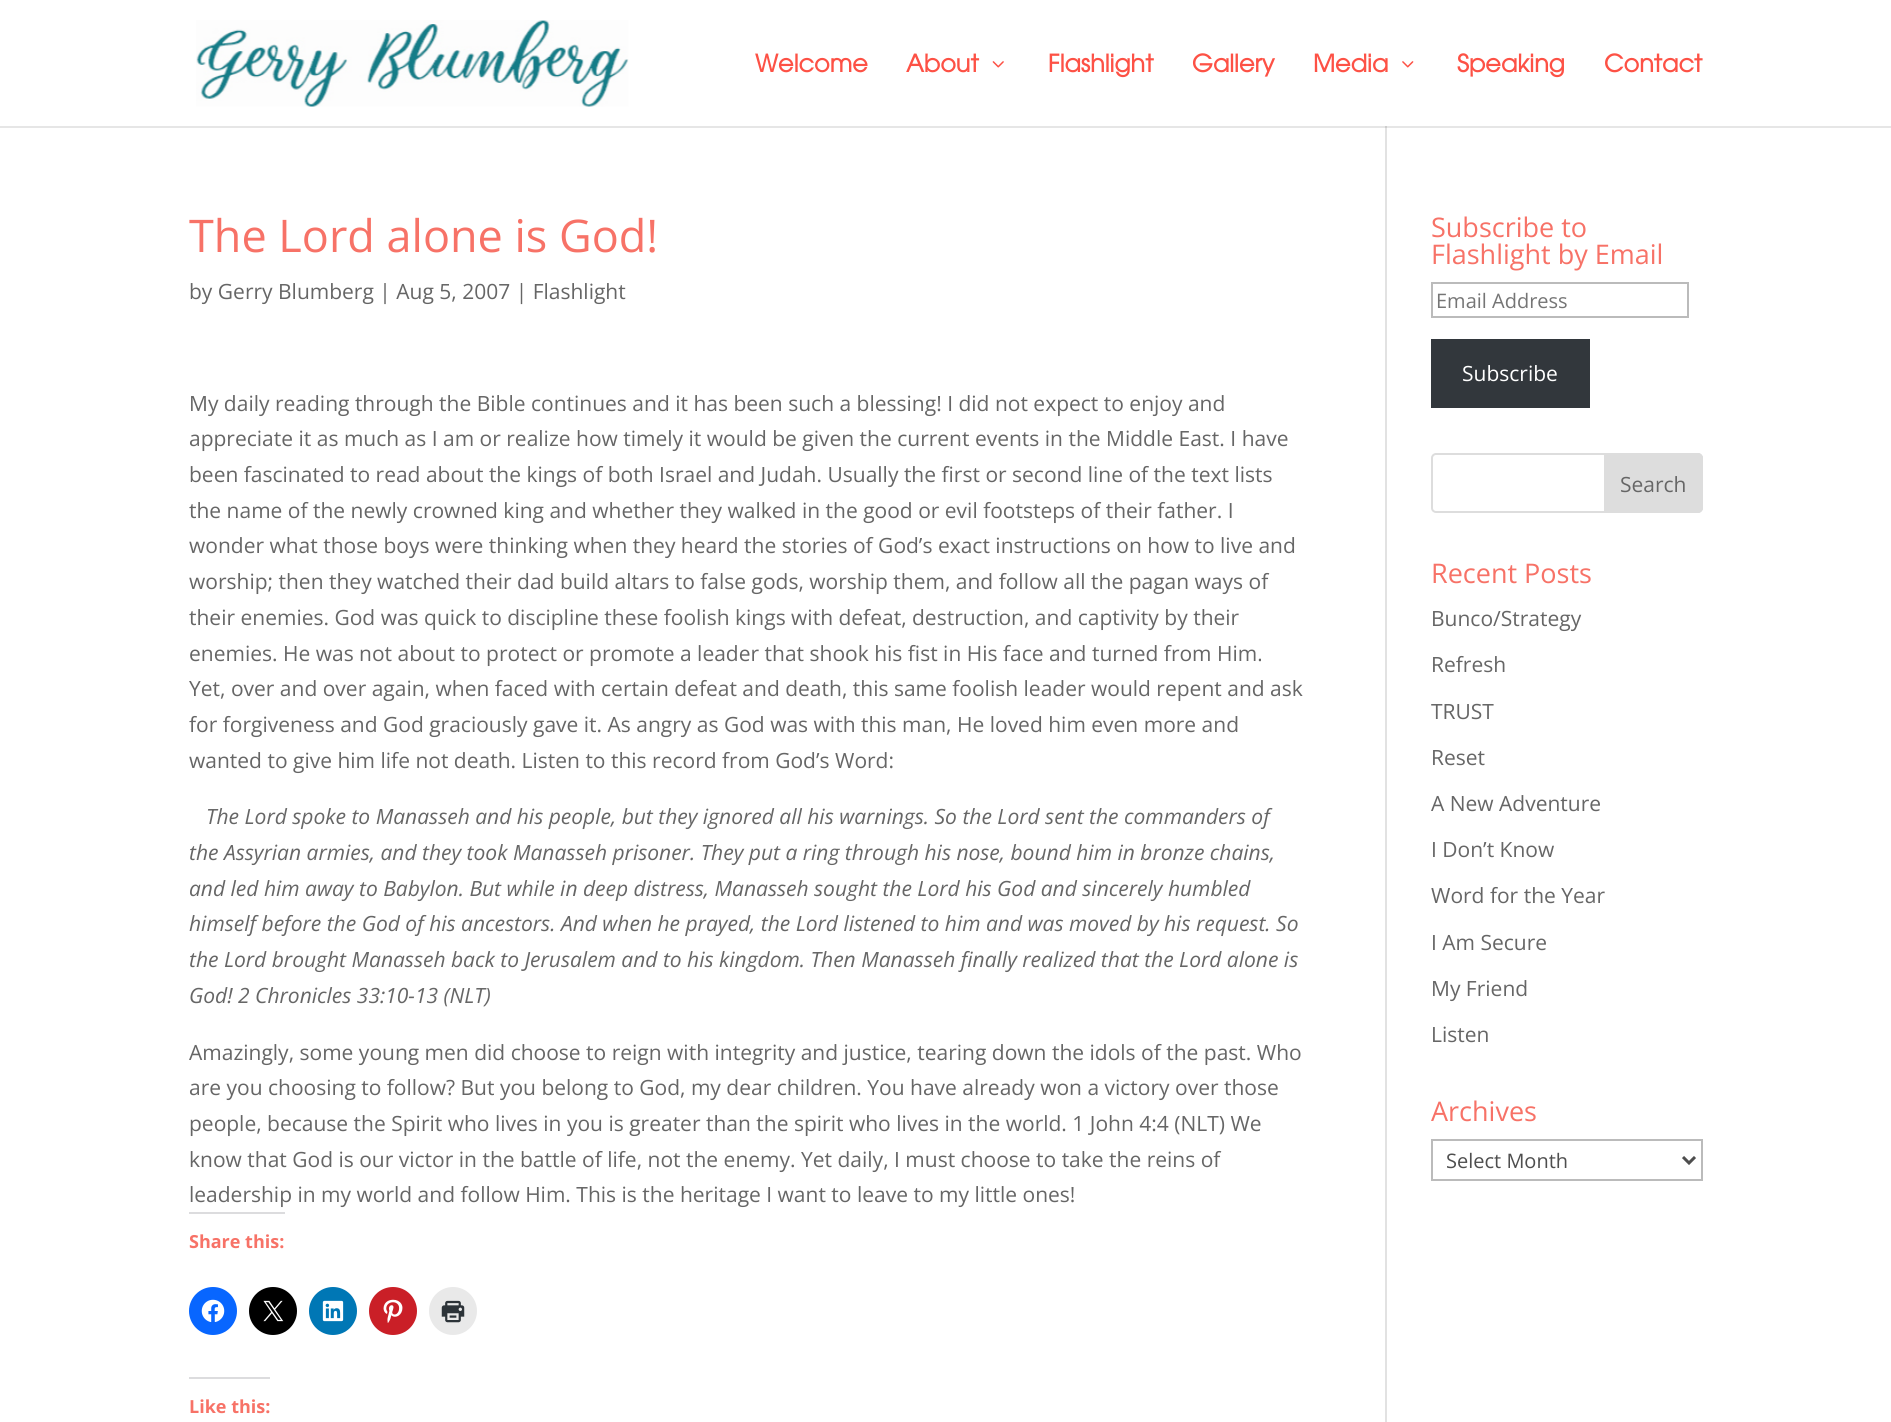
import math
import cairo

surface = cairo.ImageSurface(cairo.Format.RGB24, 1891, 1422)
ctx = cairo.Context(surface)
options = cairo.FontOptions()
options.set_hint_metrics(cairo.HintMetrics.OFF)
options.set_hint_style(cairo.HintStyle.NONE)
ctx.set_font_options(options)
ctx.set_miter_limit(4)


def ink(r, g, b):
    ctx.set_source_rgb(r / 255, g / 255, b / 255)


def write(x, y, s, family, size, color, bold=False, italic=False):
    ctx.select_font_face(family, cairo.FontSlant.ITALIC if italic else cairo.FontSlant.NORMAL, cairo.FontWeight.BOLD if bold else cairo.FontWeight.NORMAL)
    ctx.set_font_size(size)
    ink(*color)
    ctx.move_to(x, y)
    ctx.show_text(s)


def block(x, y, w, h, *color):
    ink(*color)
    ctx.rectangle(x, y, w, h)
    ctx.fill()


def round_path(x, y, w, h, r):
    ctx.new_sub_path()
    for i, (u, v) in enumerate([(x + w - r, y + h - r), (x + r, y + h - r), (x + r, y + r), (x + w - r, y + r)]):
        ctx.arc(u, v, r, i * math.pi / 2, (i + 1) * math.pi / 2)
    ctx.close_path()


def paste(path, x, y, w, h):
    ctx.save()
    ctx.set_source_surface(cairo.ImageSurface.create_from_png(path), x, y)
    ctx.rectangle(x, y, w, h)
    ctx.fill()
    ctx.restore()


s1 = dict(family="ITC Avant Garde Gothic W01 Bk", size=24, color=(253, 81, 69), bold=True)
s2 = dict(family="Open Sans", size=45, color=(247, 114, 103))
s3 = dict(family="Open Sans", size=21, color=(102, 102, 102))
s4 = dict(family="Open Sans", size=21, color=(102, 102, 102), italic=True)
s5 = dict(family="Open Sans", size=18, color=(247, 114, 103), bold=True)
s6 = dict(family="Open Sans", size=27, color=(247, 114, 103))
s7 = dict(family="Open Sans", size=20, color=(117, 117, 117))
s8 = dict(family="Open Sans", size=21, color=(255, 255, 255))
s9 = dict(family="Open Sans", size=20, color=(78, 78, 78))

ink(255, 255, 255)
ctx.paint()
block(1385, 126, 2, 1296, 226, 226, 226)
ctx.set_source_rgba(0, 0, 0, 0.1)
ctx.new_path()
ctx.move_to(0, 126)
ctx.line_to(0, 128)
ctx.line_to(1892, 128)
ctx.line_to(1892, 2)
ctx.line_to(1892, 126)
ctx.close_path()
ctx.fill()
paste("pic1.png", 196, 20, 433, 87)
write(755, 72, "Welcome", **s1)
write(906, 72, "About", **s1)
paste("pic2.png", 992, 61, 12, 7)
write(1048, 72, "Flashlight", **s1)
write(1192, 72, "Gallery", **s1)
write(1313, 72, "Media", **s1)
paste("pic3.png", 1402, 61, 12, 7)
write(1457, 72, "Speaking", **s1)
write(1604, 72, "Contact", **s1)
write(189, 252, "The Lord alone is God!", **s2)
write(189, 299, "by Gerry Blumberg | Aug 5, 2007 | Flashlight", **s3)
write(189, 411, "My daily reading through the Bible continues and it has been such a blessing! I did not expect to enjoy and", **s3)
write(189, 446, "appreciate it as much as I am or realize how timely it would be given the current events in the Middle East. I have", **s3)
write(189, 482, "been fascinated to read about the kings of both Israel and Judah. Usually the first or second line of the text lists", **s3)
write(189, 518, "the name of the newly crowned king and whether they walked in the good or evil footsteps of their father. I", **s3)
write(189, 553, "wonder what those boys were thinking when they heard the stories of God’s exact instructions on how to live and", **s3)
write(189, 589, "worship; then they watched their dad build altars to false gods, worship them, and follow all the pagan ways of", **s3)
write(189, 625, "their enemies. God was quick to discipline these foolish kings with defeat, destruction, and captivity by their", **s3)
write(189, 661, "enemies. He was not about to protect or promote a leader that shook his fist in His face and turned from Him.", **s3)
write(189, 696, "Yet, over and over again, when faced with certain defeat and death, this same foolish leader would repent and ask", **s3)
write(189, 732, "for forgiveness and God graciously gave it. As angry as God was with this man, He loved him even more and", **s3)
write(189, 768, "wanted to give him life not death. Listen to this record from God’s Word:", **s3)
write(206, 824, "The Lord spoke to Manasseh and his people, but they ignored all his warnings. So the Lord sent the commanders of", **s4)
write(189, 860, "the Assyrian armies, and they took Manasseh prisoner. They put a ring through his nose, bound him in bronze chains,", **s4)
write(189, 896, "and led him away to Babylon. But while in deep distress, Manasseh sought the Lord his God and sincerely humbled", **s4)
write(189, 931, "himself before the God of his ancestors. And when he prayed, the Lord listened to him and was moved by his request. So", **s4)
write(189, 967, "the Lord brought Manasseh back to Jerusalem and to his kingdom. Then Manasseh finally realized that the Lord alone is", **s4)
write(189, 1003, "God! 2 Chronicles 33:10-13 (NLT)", **s4)
write(189, 1060, "Amazingly, some young men did choose to reign with integrity and justice, tearing down the idols of the past. Who", **s3)
write(189, 1095, "are you choosing to follow? But you belong to God, my dear children. You have already won a victory over those", **s3)
write(189, 1131, "people, because the Spirit who lives in you is greater than the spirit who lives in the world. 1 John 4:4 (NLT) We", **s3)
write(189, 1167, "know that God is our victor in the battle of life, not the enemy. Yet daily, I must choose to take the reins of", **s3)
write(189, 1202, "leadership in my world and follow Him. This is the heritage I want to leave to my little ones!", **s3)
block(189, 1212, 96, 2, 220, 220, 222)
write(189, 1248, "Share this:", **s5)
ink(8, 102, 255)
ctx.new_path()
ctx.arc(213, 1311, 24, 0, 2 * math.pi)
ctx.fill()
paste("pic4.png", 201, 1299, 24, 23)
ink(0, 0, 0)
ctx.arc(273, 1311, 24, 0, 2 * math.pi)
ctx.fill()
paste("pic5.png", 263, 1300, 21, 22)
ink(0, 119, 181)
ctx.arc(333, 1311, 24, 0, 2 * math.pi)
ctx.fill()
paste("pic6.png", 322, 1300, 22, 22)
ink(202, 31, 39)
ctx.arc(393, 1311, 24, 0, 2 * math.pi)
ctx.fill()
paste("pic7.png", 383, 1299, 20, 24)
ink(233, 233, 233)
ctx.arc(453, 1311, 24, 0, 2 * math.pi)
ctx.fill()
paste("pic8.png", 441, 1300, 24, 23)
block(189, 1377, 81, 2, 220, 220, 222)
write(189, 1413, "Like this:", **s5)
write(1431, 237, "Subscribe to", **s6)
write(1431, 264, "Flashlight by Email", **s6)
ctx.rectangle(1432, 283, 256, 34)
ink(187, 187, 187)
ctx.stroke()
write(1436, 308, "Email Address", **s7)
block(1431, 339, 159, 69, 50, 55, 60)
write(1462, 381, "Subscribe", **s8)
round_path(1432, 454, 270, 58, 4)
ink(221, 221, 221)
ctx.stroke()
ctx.new_path()
ctx.move_to(1605, 454)
ctx.line_to(1698, 454)
ctx.curve_to(1700, 454, 1702, 456, 1702, 458)
ctx.line_to(1702, 508)
ctx.curve_to(1702, 510, 1700, 512, 1698, 512)
ctx.line_to(1605, 512)
ctx.close_path()
ctx.fill_preserve()
ctx.stroke()
write(1620, 492, "Search", **s3)
write(1431, 583, "Recent Posts", **s6)
write(1431, 626, "Bunco/Strategy", **s3)
write(1431, 672, "Refresh", **s3)
write(1431, 719, "TRUST", **s3)
write(1431, 765, "Reset", **s3)
write(1431, 811, "A New Adventure", **s3)
write(1431, 857, "I Don’t Know", **s3)
write(1431, 903, "Word for the Year", **s3)
write(1431, 950, "I Am Secure", **s3)
write(1431, 996, "My Friend", **s3)
write(1431, 1042, "Listen", **s3)
write(1431, 1121, "Archives", **s6)
ctx.rectangle(1432, 1140, 270, 40)
ink(187, 187, 187)
ctx.stroke()
ctx.new_path()
ctx.move_to(1683, 1157)
ctx.line_to(1689, 1163)
ctx.line_to(1695, 1157)
ink(78, 78, 78)
ctx.set_line_width(3)
ctx.stroke()
write(1446, 1168, "Select Month", **s9)
surface.write_to_png("screenshot.png")
